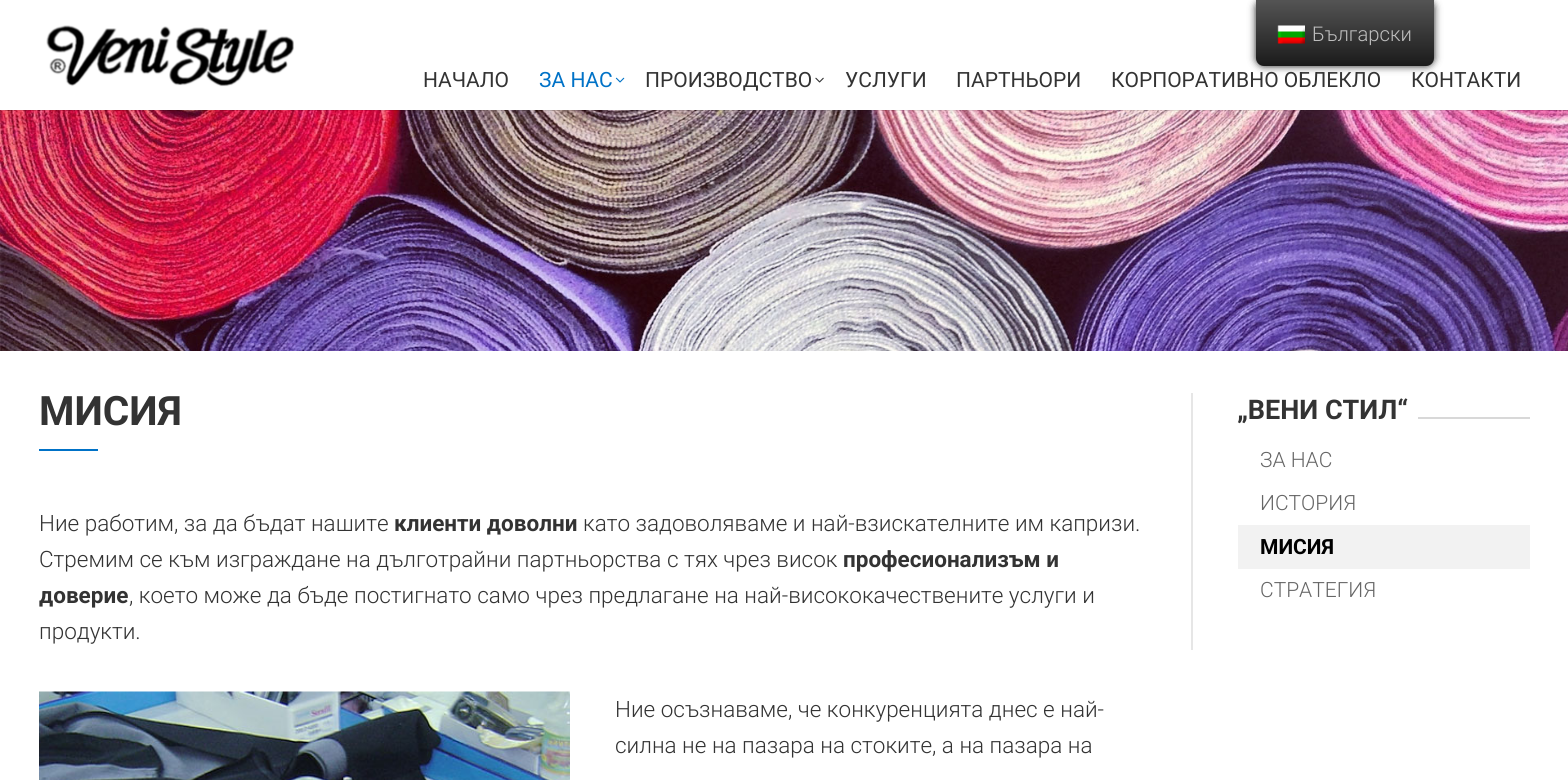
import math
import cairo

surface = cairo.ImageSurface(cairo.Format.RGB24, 1568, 780)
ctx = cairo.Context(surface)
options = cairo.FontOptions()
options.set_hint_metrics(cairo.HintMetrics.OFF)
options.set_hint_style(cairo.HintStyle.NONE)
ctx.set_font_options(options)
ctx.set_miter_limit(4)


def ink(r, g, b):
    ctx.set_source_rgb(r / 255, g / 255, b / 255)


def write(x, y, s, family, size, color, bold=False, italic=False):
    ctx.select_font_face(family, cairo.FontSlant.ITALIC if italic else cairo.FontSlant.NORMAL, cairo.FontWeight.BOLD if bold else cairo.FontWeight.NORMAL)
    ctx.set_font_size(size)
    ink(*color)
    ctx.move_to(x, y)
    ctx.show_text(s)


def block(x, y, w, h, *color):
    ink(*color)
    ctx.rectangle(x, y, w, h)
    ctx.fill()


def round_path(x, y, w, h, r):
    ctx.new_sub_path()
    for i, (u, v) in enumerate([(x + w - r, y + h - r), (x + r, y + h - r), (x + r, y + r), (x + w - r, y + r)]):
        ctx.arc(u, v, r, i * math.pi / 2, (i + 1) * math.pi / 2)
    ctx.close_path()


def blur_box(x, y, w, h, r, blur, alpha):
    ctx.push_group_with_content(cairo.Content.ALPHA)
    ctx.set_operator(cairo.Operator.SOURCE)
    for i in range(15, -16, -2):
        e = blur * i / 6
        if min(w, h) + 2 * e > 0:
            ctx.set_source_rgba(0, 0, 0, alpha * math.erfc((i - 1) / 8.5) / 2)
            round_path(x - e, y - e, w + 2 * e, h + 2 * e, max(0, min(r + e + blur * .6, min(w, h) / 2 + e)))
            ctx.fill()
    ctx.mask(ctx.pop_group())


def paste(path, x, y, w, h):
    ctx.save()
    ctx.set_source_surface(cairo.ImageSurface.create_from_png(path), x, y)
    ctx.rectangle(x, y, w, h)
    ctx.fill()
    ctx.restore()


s1 = dict(family="Roboto Light", size=20.25, color=(189, 189, 189))
s2 = dict(family="Roboto", size=21, color=(51, 51, 51))
s3 = dict(family="Roboto", size=21, color=(0, 114, 199))
s4 = dict(family="Roboto", size=40.5, color=(51, 51, 51), bold=True)
s5 = dict(family="Roboto Light", size=22.5, color=(51, 51, 51))
s6 = dict(family="Roboto", size=22.5, color=(51, 51, 51), bold=True)
s7 = dict(family="Roboto", size=27, color=(51, 51, 51), bold=True)
s8 = dict(family="Roboto Light", size=21, color=(102, 102, 102))
s9 = dict(family="Roboto", size=21, color=(0, 0, 0), bold=True)

ink(255, 255, 255)
ctx.paint()
ink(33, 33, 33)
blur_box(1256, 0, 178, 66, 8, 4, 1)
gradient = cairo.LinearGradient(1345, 66, 1345, 0)
gradient.add_color_stop_rgba(0, 0.106, 0.106, 0.106, 1)
gradient.add_color_stop_rgba(1, 0.329, 0.329, 0.329, 1)
ctx.set_source(gradient)
ctx.new_path()
ctx.move_to(1256, 0)
ctx.line_to(1434, 0)
ctx.line_to(1434, 58)
ctx.curve_to(1434, 62.5, 1430.5, 66, 1426, 66)
ctx.line_to(1264, 66)
ctx.curve_to(1259.5, 66, 1256, 62.5, 1256, 58)
ctx.close_path()
ctx.fill()
paste("pic1.png", 1277, 25, 28, 19)
write(1312, 41, "Български", **s1)
paste("pic5.png", 0, 110, 1568, 241)
ctx.set_source_rgba(0, 0, 0, 0.1)
ctx.rectangle(0, 110, 1568, 1)
ctx.fill()
paste("pic2.png", 46, 25, 248, 62)
write(423, 87, "НАЧАЛО", **s2)
write(539, 87, "ЗА НАС", **s3)
paste("pic3.png", 615, 77, 10, 6)
write(645, 87, "ПРОИЗВОДСТВО", **s2)
paste("pic4.png", 815, 77, 9, 6)
write(845, 87, "УСЛУГИ", **s2)
write(956, 87, "ПАРТНЬОРИ", **s2)
write(1111, 87, "КОРПОРАТИВНО ОБЛЕКЛО", **s2)
write(1411, 87, "КОНТАКТИ", **s2)
write(39, 425, "МИСИЯ", **s4)
block(39, 449, 59, 2, 0, 114, 199)
write(39, 531, "Ние работим, за да бъдат нашите", **s5)
write(394, 531, "клиенти доволни", **s6)
write(583, 531, "като задоволяваме и най-взискателните им капризи.", **s5)
write(39, 567, "Стремим се към изграждане на дълготрайни партньорства с тях чрез висок", **s5)
write(843, 567, "професионализъм и", **s6)
write(39, 603, "доверие", **s6)
write(129, 603, ", което може да бъде постигнато само чрез предлагане на най-висококачествените услуги и", **s5)
write(39, 639, "продукти.", **s5)
paste("pic6.png", 39, 691, 531, 89)
write(615, 717, "Ние осъзнаваме, че конкуренцията днес е най-", **s5)
write(615, 753, "силна не на пазара на стоките, а на пазара на", **s5)
block(1191, 393, 2, 257, 230, 230, 230)
write(1237, 419, "„ВЕНИ СТИЛ“", **s7)
block(1418, 417, 112, 2, 216, 216, 216)
write(1260, 467, "ЗА НАС", **s8)
write(1260, 510, "ИСТОРИЯ", **s8)
block(1238, 525, 292, 44, 242, 242, 242)
write(1260, 554, "МИСИЯ", **s9)
write(1260, 597, "СТРАТЕГИЯ", **s8)
surface.write_to_png("screenshot.png")
